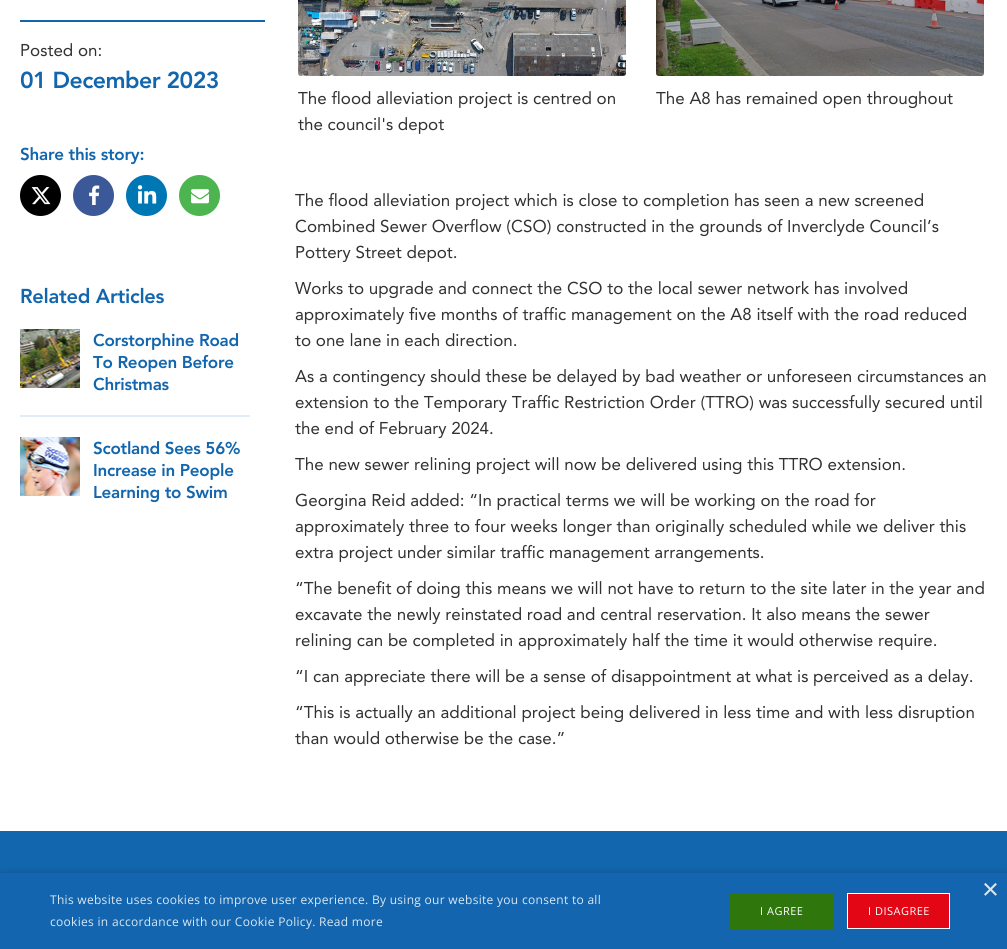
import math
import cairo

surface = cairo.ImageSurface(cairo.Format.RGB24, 1007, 949)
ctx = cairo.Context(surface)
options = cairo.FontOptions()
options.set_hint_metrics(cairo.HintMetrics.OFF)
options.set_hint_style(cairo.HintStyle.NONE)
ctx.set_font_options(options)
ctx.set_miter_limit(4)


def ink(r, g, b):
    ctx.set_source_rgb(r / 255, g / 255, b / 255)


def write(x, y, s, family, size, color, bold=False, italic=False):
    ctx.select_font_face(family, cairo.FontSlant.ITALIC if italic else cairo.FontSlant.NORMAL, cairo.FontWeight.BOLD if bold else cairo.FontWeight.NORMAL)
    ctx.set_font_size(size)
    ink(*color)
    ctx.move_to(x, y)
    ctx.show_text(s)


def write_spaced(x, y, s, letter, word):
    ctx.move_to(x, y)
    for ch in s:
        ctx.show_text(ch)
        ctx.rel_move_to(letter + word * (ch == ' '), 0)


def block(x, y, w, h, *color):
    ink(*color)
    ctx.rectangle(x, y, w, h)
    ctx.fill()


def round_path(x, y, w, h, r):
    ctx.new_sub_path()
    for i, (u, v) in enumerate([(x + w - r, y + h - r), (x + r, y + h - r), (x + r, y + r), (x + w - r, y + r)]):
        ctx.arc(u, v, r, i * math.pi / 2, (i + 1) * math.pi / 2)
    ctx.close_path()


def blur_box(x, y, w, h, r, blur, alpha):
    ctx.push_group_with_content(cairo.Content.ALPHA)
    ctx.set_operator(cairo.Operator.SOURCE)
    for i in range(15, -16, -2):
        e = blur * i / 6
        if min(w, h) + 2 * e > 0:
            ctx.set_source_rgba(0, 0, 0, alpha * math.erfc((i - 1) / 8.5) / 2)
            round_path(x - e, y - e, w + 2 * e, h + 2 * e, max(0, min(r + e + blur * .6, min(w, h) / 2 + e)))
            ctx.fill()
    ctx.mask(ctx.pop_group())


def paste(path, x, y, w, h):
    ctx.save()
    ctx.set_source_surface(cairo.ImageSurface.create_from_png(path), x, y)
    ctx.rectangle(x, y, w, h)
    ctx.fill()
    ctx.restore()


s1 = dict(family="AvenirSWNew", size=17, color=(49, 49, 49))
s2 = dict(family="Liberation Sans", size=29, color=(219, 232, 243))

ink(255, 255, 255)
ctx.paint()
block(20, 20, 245, 2, 18, 102, 174)
write(20, 56, "Posted on:", **s1)
ctx.select_font_face("AvenirSWNew Black")
ctx.set_font_size(23)
ink(18, 102, 174)
write_spaced(20, 88, "01 December 2023", -0.5, 0)
ctx.set_font_size(17)
write_spaced(20, 160, "Share this story:", -0.25, 0)
ink(0, 0, 0)
ctx.new_path()
ctx.arc(40.5, 195.5, 20.5, 0, 2 * math.pi)
ctx.fill()
paste("pic1.png", 31, 187, 20, 18)
ink(59, 89, 152)
ctx.arc(93.5, 195.5, 20.5, 0, 2 * math.pi)
ctx.fill()
paste("pic2.png", 89, 185, 11, 20)
ink(0, 119, 181)
ctx.arc(146.5, 195.5, 20.5, 0, 2 * math.pi)
ctx.fill()
paste("pic3.png", 137, 185, 20, 19)
ink(76, 181, 80)
ctx.arc(199.5, 195.5, 20.5, 0, 2 * math.pi)
ctx.fill()
paste("pic4.png", 191, 189, 18, 15)
ctx.set_font_size(20)
ink(18, 102, 174)
write_spaced(20, 303, "Related Articles", -0.25, 0)
block(20, 415, 230, 2, 224, 237, 249)
paste("pic5.png", 20, 329, 60, 59)
ctx.set_font_size(17)
ink(18, 102, 174)
write_spaced(93, 346, "Corstorphine Road", -0.25, 0)
write_spaced(93, 368, "To Reopen Before", -0.25, 0)
write_spaced(93, 390, "Christmas", -0.25, 0)
paste("pic6.png", 20, 437, 60, 59)
write_spaced(93, 454, "Scotland Sees 56%", -0.25, 0)
write_spaced(93, 476, "Increase in People", -0.25, 0)
write_spaced(93, 498, "Learning to Swim", -0.25, 0)
paste("pic7.png", 298, 0, 328, 76)
write(298, 104, "The flood alleviation project is centred on", **s1)
write(298, 130, "the council's depot", **s1)
paste("pic8.png", 656, 0, 328, 76)
write(656, 104, "The A8 has remained open throughout", **s1)
write(295, 206, "The flood alleviation project which is close to completion has seen a new screened", **s1)
write(295, 232, "Combined Sewer Overflow (CSO) constructed in the grounds of Inverclyde Council’s", **s1)
write(295, 258, "Pottery Street depot.", **s1)
write(295, 294, "Works to upgrade and connect the CSO to the local sewer network has involved", **s1)
write(295, 320, "approximately five months of traffic management on the A8 itself with the road reduced", **s1)
write(295, 346, "to one lane in each direction.", **s1)
write(295, 382, "As a contingency should these be delayed by bad weather or unforeseen circumstances an", **s1)
write(295, 408, "extension to the Temporary Traffic Restriction Order (TTRO) was successfully secured until", **s1)
write(295, 434, "the end of February 2024.", **s1)
write(295, 470, "The new sewer relining project will now be delivered using this TTRO extension.", **s1)
write(295, 506, "Georgina Reid added: “In practical terms we will be working on the road for", **s1)
write(295, 532, "approximately three to four weeks longer than originally scheduled while we deliver this", **s1)
write(295, 558, "extra project under similar traffic management arrangements.", **s1)
write(295, 594, "“The benefit of doing this means we will not have to return to the site later in the year and", **s1)
write(295, 620, "excavate the newly reinstated road and central reservation. It also means the sewer", **s1)
write(295, 646, "relining can be completed in approximately half the time it would otherwise require.", **s1)
write(295, 682, "“I can appreciate there will be a sense of disappointment at what is perceived as a delay.", **s1)
write(295, 718, "“This is actually an additional project being delivered in less time and with less disruption", **s1)
write(295, 744, "than would otherwise be the case.”", **s1)
block(0, 831, 1007, 42, 18, 102, 174)
ink(0, 0, 0)
blur_box(1, 875, 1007, 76, 0, 4, 0.35)
block(0, 873, 1007, 76, 18, 101, 174)
write(982, 899, "×", **s2)
ctx.select_font_face("Open Sans")
ctx.set_font_size(12)
write_spaced(50, 904, "This website uses cookies to improve user experience. By using our website you consent to all", 0.3, 0)
write_spaced(50, 926, "cookies in accordance with our Cookie Policy. Read more", 0.3, 0)
block(730, 893, 103, 36, 47, 119, 13)
ctx.set_font_size(11)
ink(255, 255, 255)
write_spaced(760, 915, "I AGREE", 0.5, 0)
ink(227, 6, 21)
ctx.rectangle(847.5, 893.5, 102, 35)
ctx.fill_preserve()
ink(255, 255, 255)
ctx.set_line_width(1)
ctx.stroke()
write_spaced(868, 915, "I DISAGREE", 0.5, 0)
surface.write_to_png("screenshot.png")
